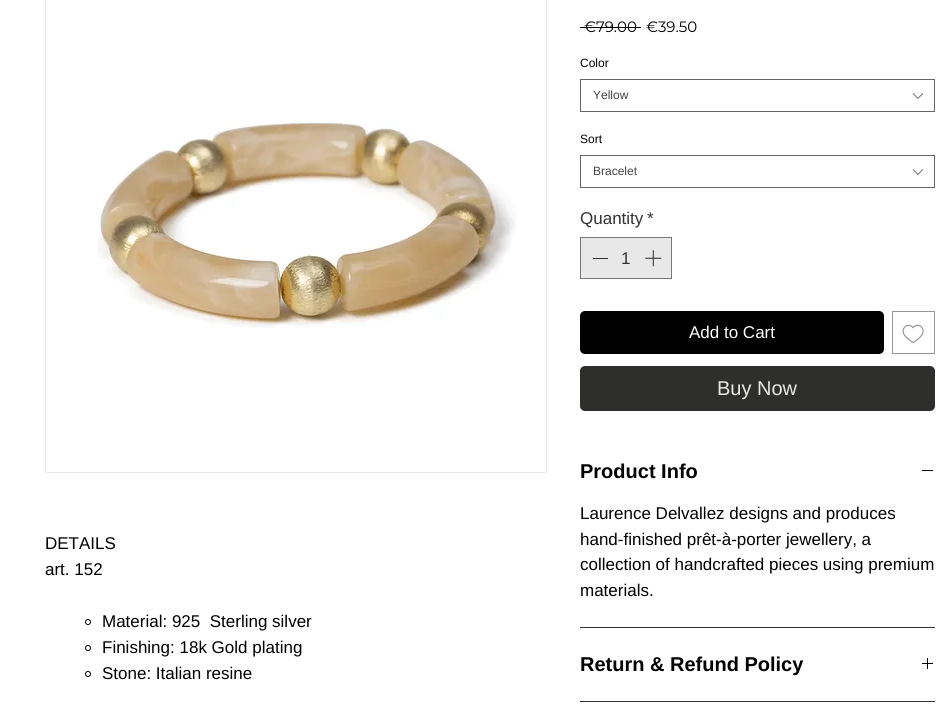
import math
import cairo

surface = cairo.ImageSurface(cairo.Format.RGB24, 937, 714)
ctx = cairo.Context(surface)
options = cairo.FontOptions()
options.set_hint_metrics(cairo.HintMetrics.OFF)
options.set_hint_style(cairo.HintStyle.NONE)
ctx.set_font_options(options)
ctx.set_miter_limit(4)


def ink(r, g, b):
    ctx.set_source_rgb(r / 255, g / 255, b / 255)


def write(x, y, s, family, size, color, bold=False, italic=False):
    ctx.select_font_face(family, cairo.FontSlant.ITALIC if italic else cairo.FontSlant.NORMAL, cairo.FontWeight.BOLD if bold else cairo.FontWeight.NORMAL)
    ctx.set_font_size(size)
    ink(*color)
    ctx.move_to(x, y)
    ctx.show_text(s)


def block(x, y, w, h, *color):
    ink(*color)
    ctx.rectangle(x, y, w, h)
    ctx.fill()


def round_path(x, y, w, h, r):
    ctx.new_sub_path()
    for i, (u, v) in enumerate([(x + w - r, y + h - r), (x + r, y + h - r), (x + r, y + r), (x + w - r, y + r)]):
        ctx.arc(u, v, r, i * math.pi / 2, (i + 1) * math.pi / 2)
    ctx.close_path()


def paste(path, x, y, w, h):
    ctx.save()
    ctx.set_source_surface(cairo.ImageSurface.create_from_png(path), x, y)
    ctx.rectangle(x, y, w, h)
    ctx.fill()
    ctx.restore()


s1 = dict(family="Liberation Sans", size=17, color=(0, 0, 0))
s2 = dict(family="Montserrat Thin", size=15, color=(0, 0, 0))
s3 = dict(family="Liberation Sans", size=12, color=(0, 0, 0))
s4 = dict(family="Liberation Sans", size=12, color=(68, 68, 68))
s5 = dict(family="Liberation Sans", size=17, color=(50, 50, 50))
s6 = dict(family="Liberation Sans", size=17, color=(255, 255, 255))
s7 = dict(family="Liberation Sans", size=20, color=(232, 232, 232))
s8 = dict(family="Liberation Sans", size=20, color=(0, 0, 0), bold=True)

ink(255, 255, 255)
ctx.paint()
ctx.rectangle(45.5, -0.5, 501, 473)
ink(232, 232, 232)
ctx.set_line_width(1)
ctx.stroke()
paste("pic1.png", 97, 122, 419, 206)
write(45, 549, "DETAILS", **s1)
write(45, 575, "art. 152", **s1)
ctx.new_path()
ctx.arc(88, 622, 2.5, 0, 2 * math.pi)
ctx.stroke()
write(102, 627, "Material: 925  Sterling silver", **s1)
ctx.new_path()
ctx.arc(88, 648, 2.5, 0, 2 * math.pi)
ctx.stroke()
write(102, 653, "Finishing: 18k Gold plating", **s1)
ctx.new_path()
ctx.arc(88, 674, 2.5, 0, 2 * math.pi)
ctx.stroke()
write(102, 679, "Stone: Italian resine", **s1)
write(584, 32, "€79.00", **s2)
block(580, 27, 61, 1, 0, 0, 0)
write(646, 32, "€39.50", **s2)
write(580, 67, "Color", **s3)
ctx.rectangle(580.5, 79.5, 354, 32)
ink(102, 102, 102)
ctx.stroke()
write(593, 99, "Yellow", **s4)
paste("pic2.png", 912, 93, 12, 6)
write(580, 143, "Sort", **s3)
ctx.rectangle(580.5, 155.5, 354, 32)
ink(102, 102, 102)
ctx.stroke()
write(593, 175, "Bracelet", **s4)
paste("pic2.png", 912, 169, 12, 6)
write(580, 224, "Quantity", **s5)
write(647, 224, "*", **s5)
ink(232, 232, 232)
ctx.rectangle(580.5, 237.5, 91, 41)
ctx.fill_preserve()
ink(120, 120, 120)
ctx.stroke()
block(593, 258, 15, 1, 50, 50, 50)
write(621, 264, "1", **s5)
paste("pic3.png", 645, 250, 17, 17)
ink(0, 0, 0)
round_path(580, 311, 304, 43, 5)
ctx.fill()
write(689, 338, "Add to Cart", **s6)
ctx.rectangle(892.5, 311.5, 42, 42)
ink(150, 150, 150)
ctx.stroke()
paste("pic4.png", 902, 324, 22, 19)
ink(46, 46, 45)
round_path(580, 366, 355, 45, 5)
ctx.fill()
write(717, 395, "Buy Now", **s7)
block(580, 627, 355, 1, 50, 50, 50)
write(580, 478, "Product Info", **s8)
block(922, 470, 11, 1, 0, 0, 0)
write(580, 519, "Laurence Delvallez designs and produces", **s1)
write(580, 545, "hand-finished prêt-à-porter jewellery, a", **s1)
write(580, 570, "collection of handcrafted pieces using premium", **s1)
write(580, 596, "materials.", **s1)
block(580, 701, 355, 1, 50, 50, 50)
write(580, 671, "Return & Refund Policy", **s8)
paste("pic5.png", 922, 658, 11, 11)
surface.write_to_png("screenshot.png")
